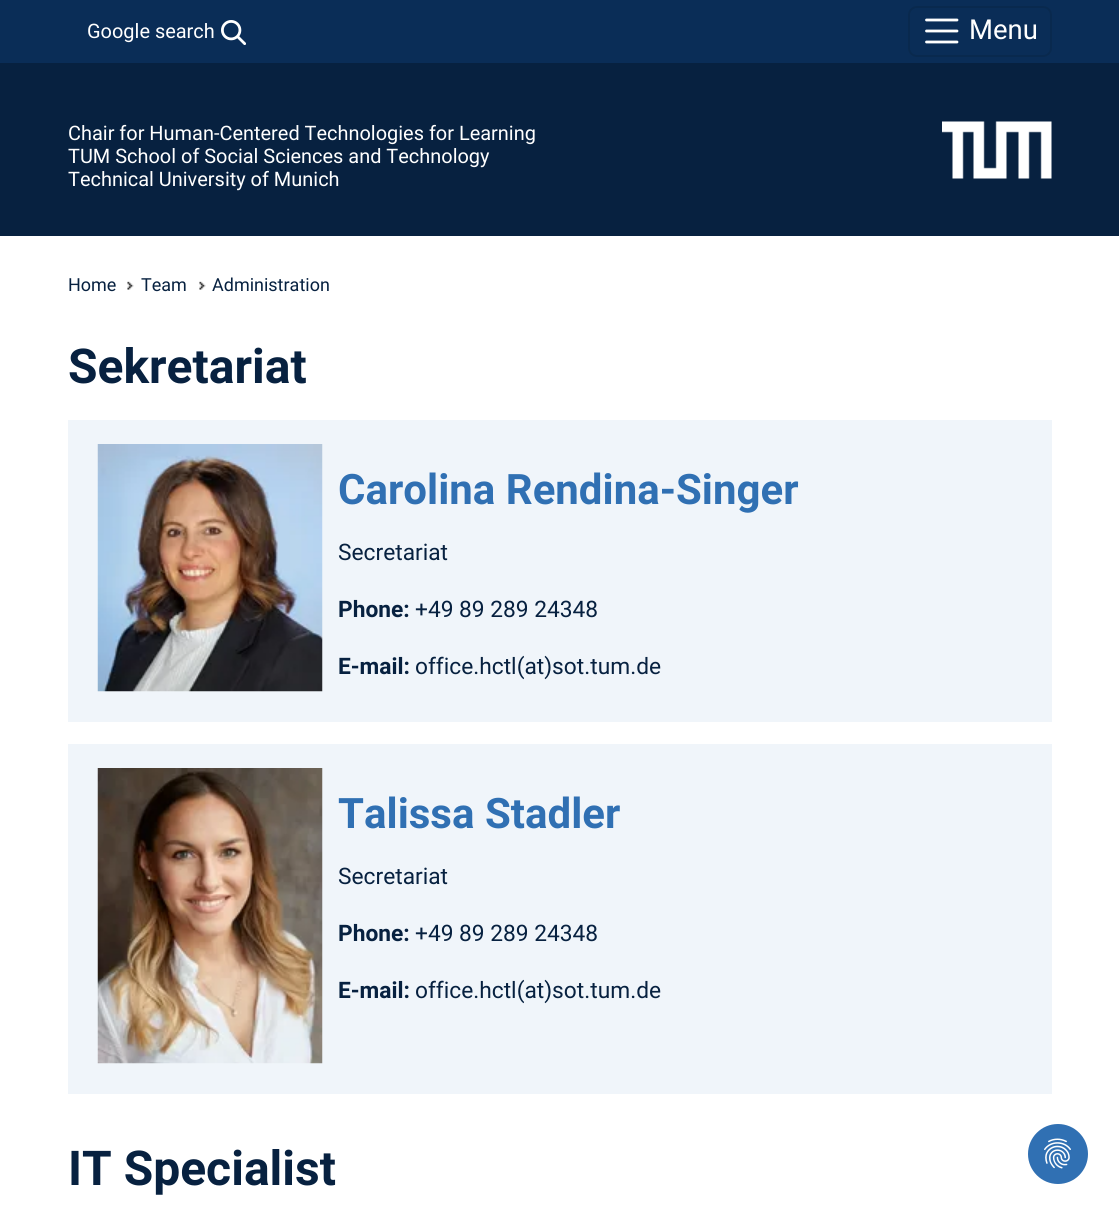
import math
import cairo

surface = cairo.ImageSurface(cairo.Format.RGB24, 1119, 1214)
ctx = cairo.Context(surface)
options = cairo.FontOptions()
options.set_hint_metrics(cairo.HintMetrics.OFF)
options.set_hint_style(cairo.HintStyle.NONE)
ctx.set_font_options(options)
ctx.set_miter_limit(4)


def ink(r, g, b):
    ctx.set_source_rgb(r / 255, g / 255, b / 255)


def write(x, y, s, family, size, color, bold=False, italic=False):
    ctx.select_font_face(family, cairo.FontSlant.ITALIC if italic else cairo.FontSlant.NORMAL, cairo.FontWeight.BOLD if bold else cairo.FontWeight.NORMAL)
    ctx.set_font_size(size)
    ink(*color)
    ctx.move_to(x, y)
    ctx.show_text(s)


def block(x, y, w, h, *color):
    ink(*color)
    ctx.rectangle(x, y, w, h)
    ctx.fill()


def round_path(x, y, w, h, r):
    ctx.new_sub_path()
    for i, (u, v) in enumerate([(x + w - r, y + h - r), (x + r, y + h - r), (x + r, y + r), (x + w - r, y + r)]):
        ctx.arc(u, v, r, i * math.pi / 2, (i + 1) * math.pi / 2)
    ctx.close_path()


def paste(path, x, y, w, h):
    ctx.save()
    ctx.set_source_surface(cairo.ImageSurface.create_from_png(path), x, y)
    ctx.rectangle(x, y, w, h)
    ctx.fill()
    ctx.restore()


s1 = dict(family="Roboto", size=19.95, color=(255, 255, 255))
s2 = dict(family="Roboto", size=27.5, color=(255, 255, 255))
s3 = dict(family="Roboto", size=18, color=(7, 33, 64))
s4 = dict(family="Roboto", size=48, color=(7, 33, 64), bold=True)
s5 = dict(family="Roboto", size=42, color=(48, 112, 179), bold=True)
s6 = dict(family="Roboto", size=22.75, color=(7, 33, 64))
s7 = dict(family="Roboto", size=22.75, color=(7, 33, 64), bold=True)

ink(255, 255, 255)
ctx.paint()
block(0, 0, 1119, 63, 10, 45, 87)
write(87, 38, "Google search", **s1)
paste("pic1.png", 221, 20, 25, 25)
round_path(909, 7, 142, 49, 8)
ink(9, 41, 78)
ctx.stroke()
ctx.new_path()
ctx.move_to(926.5, 20)
ctx.line_to(957, 20)
ctx.move_to(926.5, 31)
ctx.line_to(957, 31)
ctx.move_to(926.5, 42)
ctx.line_to(957, 42)
ink(255, 255, 255)
ctx.set_line_width(2.8)
ctx.set_line_cap(cairo.LineCap.ROUND)
ctx.stroke()
write(969, 39, "Menu", **s2)
block(0, 63, 1119, 173, 7, 33, 64)
write(68, 140, "Chair for Human-Centered Technologies for Learning", **s1)
write(68, 163, "TUM School of Social Sciences and Technology", **s1)
write(68, 186, "Technical University of Munich", **s1)
paste("pic2.png", 942, 121, 110, 58)
write(68, 291, "Home", **s3)
paste("pic3.png", 127, 281, 7, 9)
write(141, 291, "Team", **s3)
paste("pic3.png", 199, 281, 7, 9)
write(212, 291, "Administration", **s3)
write(68, 383, "Sekretariat", **s4)
block(68, 420, 984, 302, 240, 245, 250)
paste("pic4.png", 97, 444, 226, 248)
write(338, 504, "Carolina Rendina-Singer", **s5)
write(338, 560, "Secretariat", **s6)
write(338, 617, "Phone:", **s7)
write(415, 617, "+49 89 289 24348", **s6)
write(338, 674, "E-mail:", **s7)
write(415, 674, "office.hctl(at)sot.tum.de", **s6)
block(68, 744, 984, 350, 240, 245, 250)
paste("pic5.png", 97, 768, 226, 296)
write(338, 828, "Talissa Stadler", **s5)
write(338, 884, "Secretariat", **s6)
write(338, 941, "Phone:", **s7)
write(415, 941, "+49 89 289 24348", **s6)
write(338, 998, "E-mail:", **s7)
write(415, 998, "office.hctl(at)sot.tum.de", **s6)
write(68, 1185, "IT Specialist", **s4)
ink(48, 112, 179)
ctx.new_path()
ctx.arc(1058, 1154, 30, 0, 2 * math.pi)
ctx.fill()
paste("pic6.png", 1044, 1138, 27, 31)
surface.write_to_png("screenshot.png")
